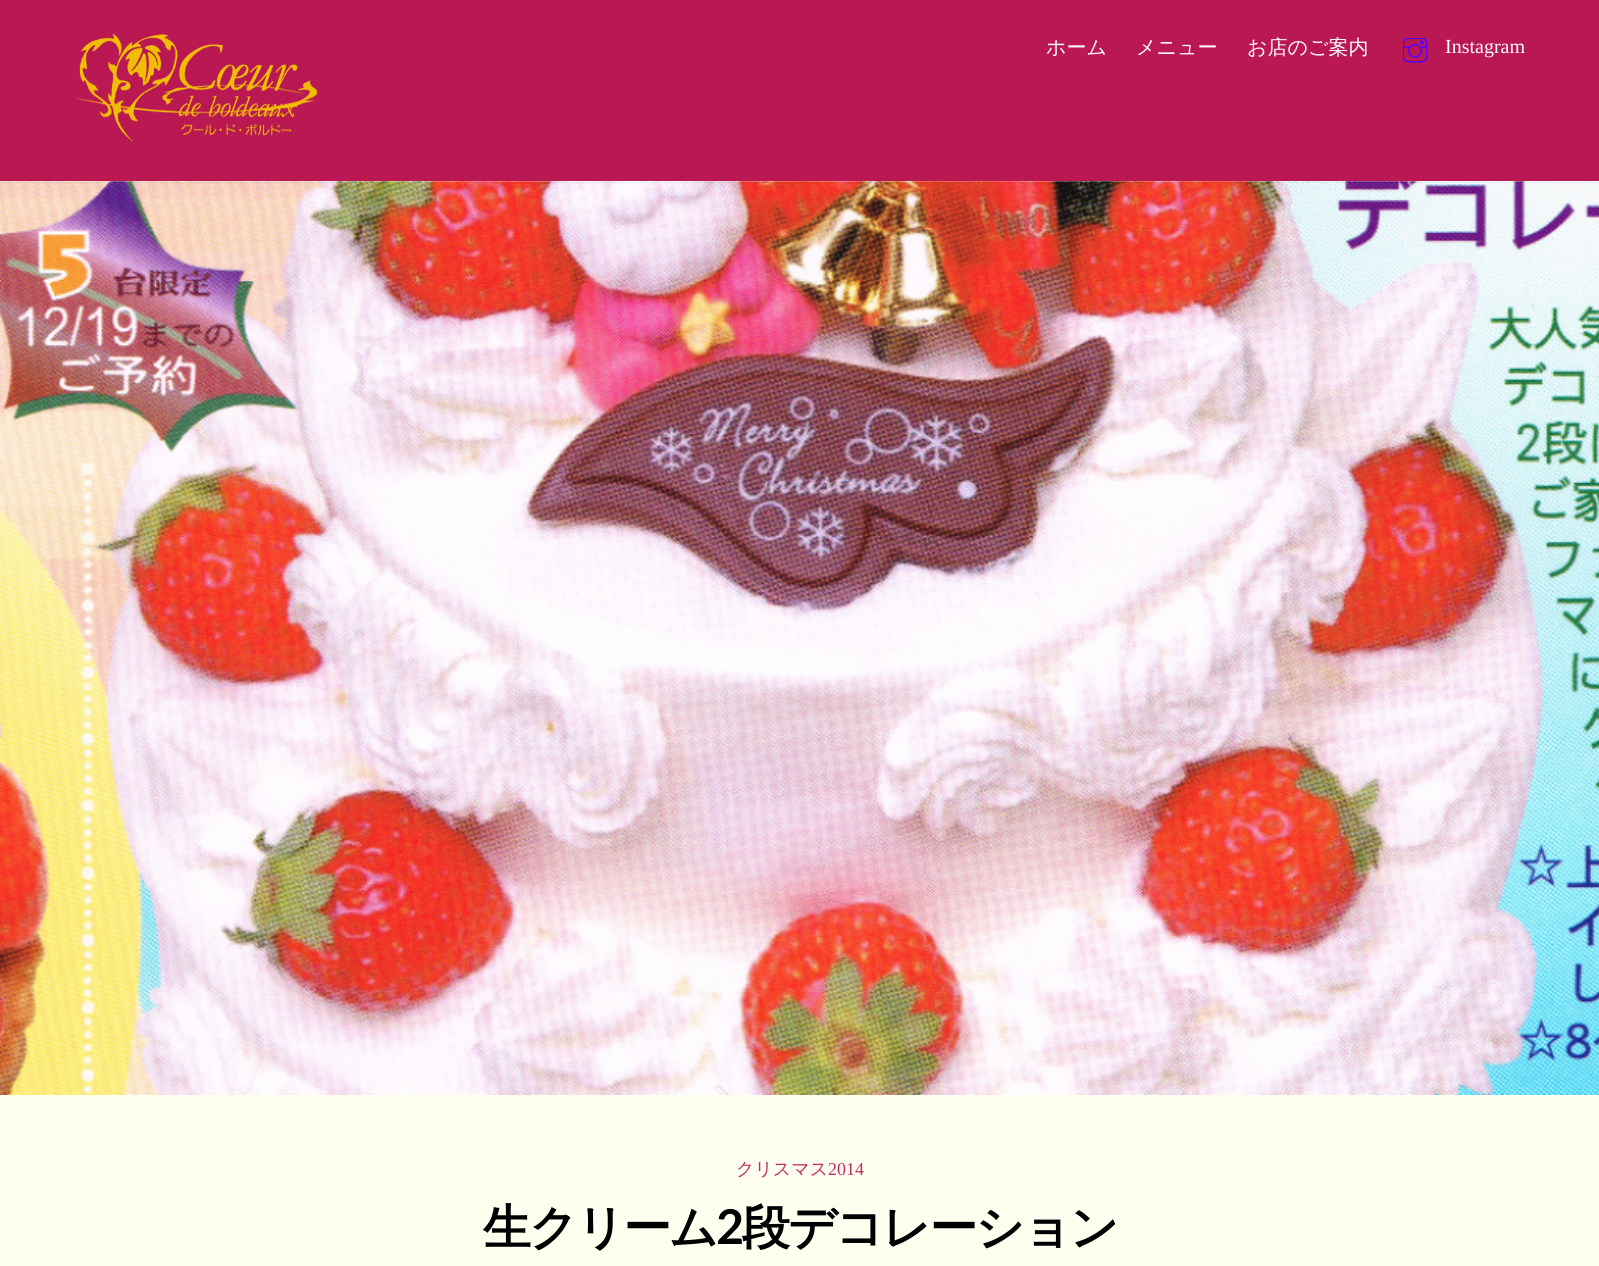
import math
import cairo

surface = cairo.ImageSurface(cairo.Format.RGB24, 1599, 1266)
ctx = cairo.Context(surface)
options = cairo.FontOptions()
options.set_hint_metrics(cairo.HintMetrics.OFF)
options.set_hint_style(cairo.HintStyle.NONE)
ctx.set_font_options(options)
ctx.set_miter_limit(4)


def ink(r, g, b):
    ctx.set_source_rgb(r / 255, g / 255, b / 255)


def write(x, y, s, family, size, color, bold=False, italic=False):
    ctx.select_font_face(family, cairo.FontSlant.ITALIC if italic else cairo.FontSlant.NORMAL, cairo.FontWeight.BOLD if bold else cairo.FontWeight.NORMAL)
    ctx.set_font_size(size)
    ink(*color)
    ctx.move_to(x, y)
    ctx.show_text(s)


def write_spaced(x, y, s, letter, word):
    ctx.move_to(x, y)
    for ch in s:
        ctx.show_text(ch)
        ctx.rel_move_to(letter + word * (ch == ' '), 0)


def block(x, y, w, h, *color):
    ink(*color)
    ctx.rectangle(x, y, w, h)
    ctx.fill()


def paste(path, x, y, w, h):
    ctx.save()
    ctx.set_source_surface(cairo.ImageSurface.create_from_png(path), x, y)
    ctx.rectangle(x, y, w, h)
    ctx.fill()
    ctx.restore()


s1 = dict(family="WenQuanYi Zen Hei Medium", size=20, color=(255, 255, 255))
s2 = dict(family="Liberation Serif", size=20, color=(255, 255, 255))
s3 = dict(family="WenQuanYi Zen Hei Medium", size=18, color=(191, 46, 98))
s4 = dict(family="Liberation Serif", size=18, color=(191, 46, 98))

ink(255, 255, 240)
ctx.paint()
paste("pic3.png", 0, 181, 1599, 914)
ctx.rectangle(-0.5, -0.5, 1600, 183)
ctx.set_source_rgba(0, 0, 0, 0.05)
ctx.set_line_width(1)
ctx.stroke()
block(0, 0, 1599, 181, 185, 24, 82)
paste("pic1.png", 75, 33, 243, 110)
write(1046, 54, "ホーム", **s1)
write(1136, 54, "メニュー", **s1)
write(1247, 54, "お店のご案内", **s1)
paste("pic2.png", 1403, 38, 25, 25)
write(1445, 53, "Instagram", **s2)
write(736, 1175, "クリスマス", **s3)
write(828, 1175, "2014", **s4)
ctx.select_font_face("WenQuanYi Zen Hei", cairo.FontSlant.NORMAL, cairo.FontWeight.BOLD)
ctx.set_font_size(48)
ink(0, 0, 0)
write_spaced(483, 1244, "生クリーム", -2, 0)
ctx.select_font_face("Lato", cairo.FontSlant.NORMAL, cairo.FontWeight.BOLD)
write_spaced(716, 1244, "2", -2, 0)
ctx.select_font_face("WenQuanYi Zen Hei", cairo.FontSlant.NORMAL, cairo.FontWeight.BOLD)
write_spaced(742, 1244, "段デコレーション", -2, 0)
surface.write_to_png("screenshot.png")
